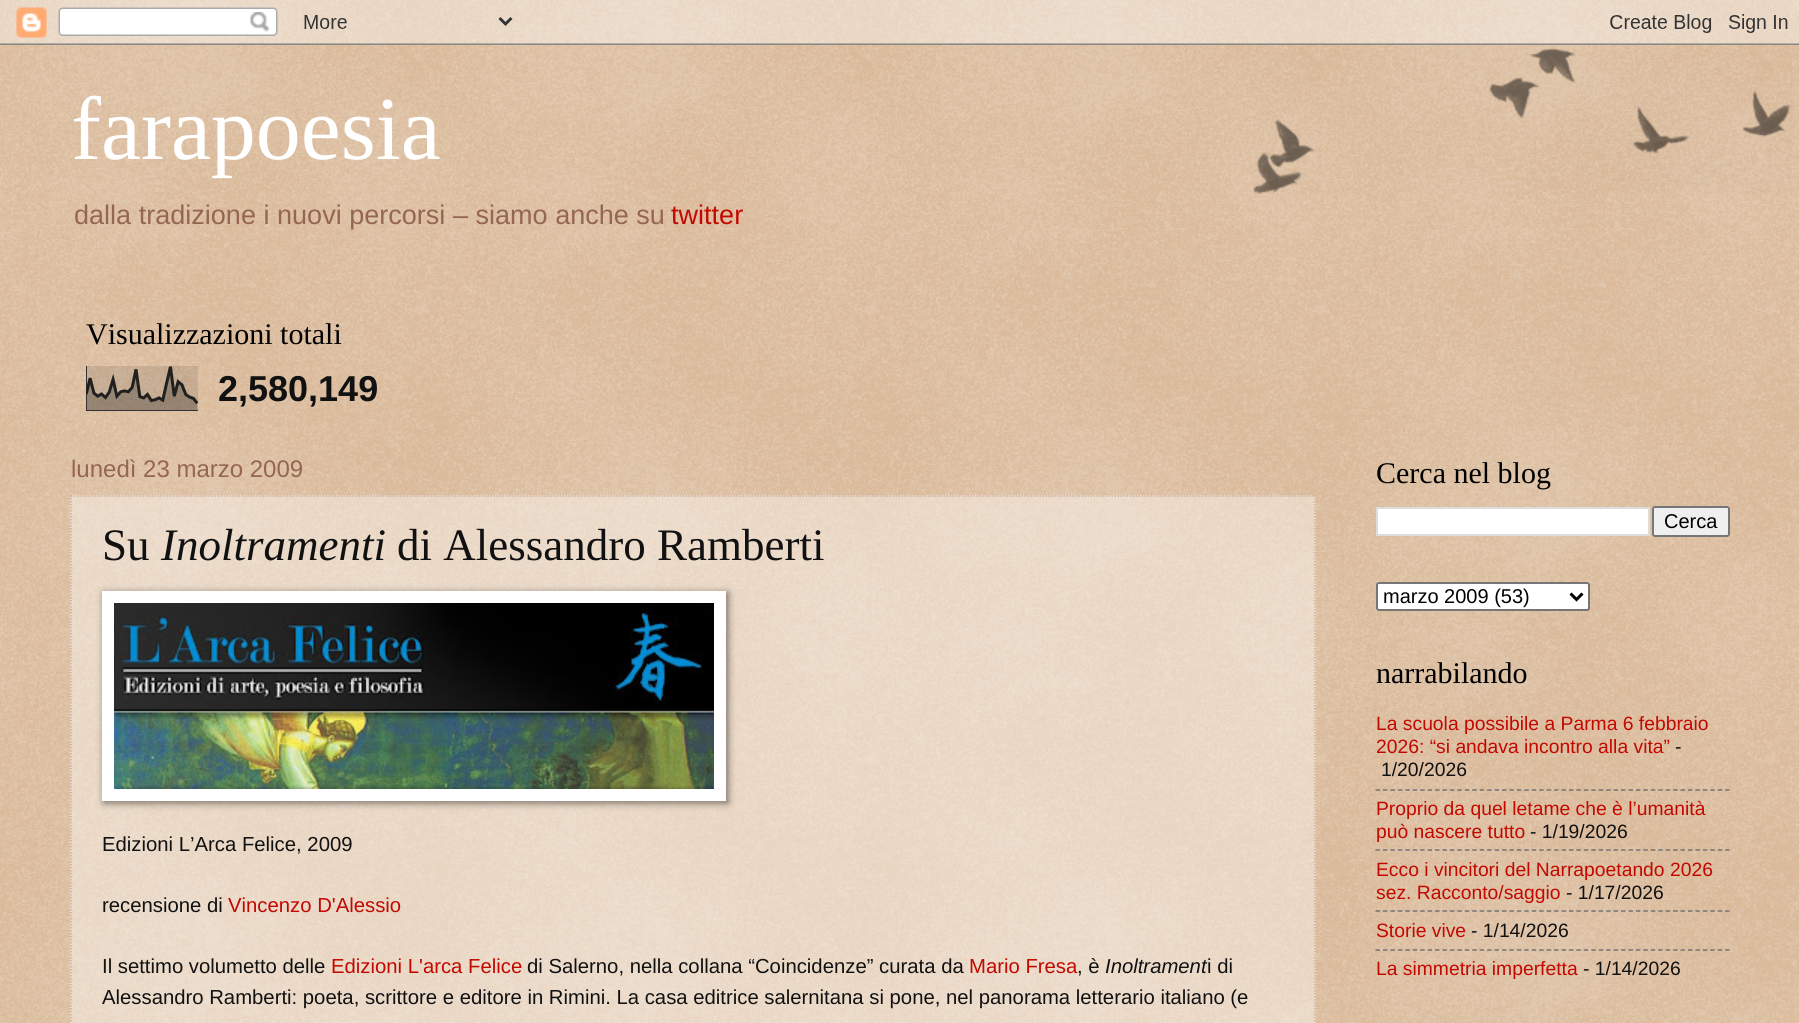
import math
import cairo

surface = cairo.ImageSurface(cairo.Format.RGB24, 1799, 1023)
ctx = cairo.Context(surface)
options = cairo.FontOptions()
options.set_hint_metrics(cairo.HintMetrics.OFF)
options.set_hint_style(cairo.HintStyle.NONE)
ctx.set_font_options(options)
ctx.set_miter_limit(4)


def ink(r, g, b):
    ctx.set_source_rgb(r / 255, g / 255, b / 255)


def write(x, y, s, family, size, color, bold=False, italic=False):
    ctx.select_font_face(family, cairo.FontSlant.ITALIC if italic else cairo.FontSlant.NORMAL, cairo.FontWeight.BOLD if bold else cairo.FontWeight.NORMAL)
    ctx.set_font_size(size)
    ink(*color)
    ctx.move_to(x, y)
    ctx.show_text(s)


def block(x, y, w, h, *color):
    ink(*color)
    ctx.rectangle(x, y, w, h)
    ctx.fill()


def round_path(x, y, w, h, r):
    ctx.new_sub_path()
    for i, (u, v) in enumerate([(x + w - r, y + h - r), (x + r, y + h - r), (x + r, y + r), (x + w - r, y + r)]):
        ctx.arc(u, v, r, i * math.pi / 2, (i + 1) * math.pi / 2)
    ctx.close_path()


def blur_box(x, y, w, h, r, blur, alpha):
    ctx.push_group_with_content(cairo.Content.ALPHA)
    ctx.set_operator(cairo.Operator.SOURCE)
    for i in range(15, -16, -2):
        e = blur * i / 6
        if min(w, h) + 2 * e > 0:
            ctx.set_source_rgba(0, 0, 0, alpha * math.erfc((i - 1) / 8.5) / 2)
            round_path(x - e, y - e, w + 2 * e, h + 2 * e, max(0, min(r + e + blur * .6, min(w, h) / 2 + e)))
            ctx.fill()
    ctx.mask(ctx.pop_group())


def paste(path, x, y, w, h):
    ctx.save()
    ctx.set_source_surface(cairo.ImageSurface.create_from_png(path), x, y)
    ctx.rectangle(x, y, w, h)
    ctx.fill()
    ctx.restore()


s1 = dict(family="Liberation Serif", size=90, color=(255, 255, 255))
s2 = dict(family="Liberation Sans", size=27.05, color=(149, 102, 83))
s3 = dict(family="Liberation Sans", size=27.05, color=(195, 8, 0))
s4 = dict(family="Liberation Serif", size=30, color=(0, 0, 0))
s5 = dict(family="Liberation Sans", size=36, color=(17, 17, 17), bold=True)
s6 = dict(family="Liberation Sans", size=24, color=(149, 102, 83))
s7 = dict(family="Liberation Serif", size=45, color=(17, 17, 17))
s8 = dict(family="Liberation Serif", size=45, color=(17, 17, 17), italic=True)
s9 = dict(family="Liberation Sans", size=20.3, color=(17, 17, 17))
s10 = dict(family="Liberation Sans", size=20.3, color=(195, 8, 0))
s11 = dict(family="Liberation Sans", size=20.3, color=(17, 17, 17), italic=True)
s12 = dict(family="Liberation Sans", size=20, color=(0, 0, 0))
s13 = dict(family="Liberation Sans", size=19.3, color=(195, 8, 0))
s14 = dict(family="Liberation Sans", size=19.3, color=(17, 17, 17))

ink(191, 136, 81)
ctx.paint()
paste("pic1.png", 0, 0, 1799, 1023)
paste("pic2.png", 0, 0, 1799, 45)
paste("pic3.png", 1252, 48, 540, 146)
write(71, 159, "farapoesia", **s1)
write(74, 224, "dalla tradizione i nuovi percorsi – siamo anche su", **s2)
write(671, 224, "twitter", **s3)
write(86, 344, "Visualizzazioni totali", **s4)
paste("pic4.png", 86, 366, 112, 45)
write(218, 401, "2,580,149", **s5)
write(71, 477, "lunedì 23 marzo 2009", **s6)
ctx.set_source_rgba(1, 1, 1, 0.4)
ctx.rectangle(70, 495, 1246, 528)
ctx.fill()
ctx.new_path()
ctx.move_to(70.5, 496)
ctx.line_to(1315.5, 496)
ink(203, 175, 151)
ctx.set_line_width(1.5)
ctx.set_dash([1.5, 1.5])
ctx.stroke()
ctx.new_path()
ctx.move_to(1315, 495)
ctx.line_to(1315, 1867.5)
ctx.stroke()
ctx.new_path()
ctx.move_to(71, 495)
ctx.line_to(71, 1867.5)
ctx.stroke()
write(102, 560, "Su", **s7)
write(161, 560, "Inoltramenti", **s8)
write(397, 560, "di Alessandro Ramberti", **s7)
ink(0, 0, 0)
blur_box(104, 593, 624, 210, 0, 4, 0.5)
block(102, 591, 624, 210, 255, 255, 255)
paste("pic5.png", 114, 603, 600, 186)
write(102, 851, "Edizioni L’Arca Felice, 2009", **s9)
write(102, 912, "recensione di", **s9)
write(228, 912, "Vincenzo D'Alessio", **s10)
write(102, 973, "Il settimo volumetto delle", **s9)
write(331, 973, "Edizioni L'arca Felice", **s10)
write(527, 973, "di Salerno, nella collana “Coincidenze” curata da", **s9)
write(969, 973, "Mario Fresa", **s10)
write(1077, 973, ", è", **s9)
write(1105, 973, "Inoltrament", **s11)
write(1207, 973, "i di", **s9)
write(102, 1004, "Alessandro Ramberti: poeta, scrittore e editore in Rimini. La casa editrice salernitana si pone, nel panorama letterario italiano (e", **s9)
write(1376, 483, "Cerca nel blog", **s4)
ink(255, 255, 255)
ctx.rectangle(1377, 508, 272, 27)
ctx.fill_preserve()
ink(221, 221, 221)
ctx.set_line_width(2)
ctx.set_dash([])
ctx.stroke()
ink(239, 239, 239)
round_path(1653, 507, 76, 29, 2)
ctx.fill_preserve()
ink(118, 118, 118)
ctx.stroke()
write(1664, 528, "Cerca", **s12)
ink(255, 255, 255)
round_path(1377, 583, 212, 27, 2)
ctx.fill_preserve()
ink(118, 118, 118)
ctx.stroke()
ctx.new_path()
ctx.move_to(1570.5, 593.5)
ctx.line_to(1576.5, 599.5)
ctx.line_to(1582.5, 593.5)
ink(0, 0, 0)
ctx.set_line_width(3)
ctx.stroke()
write(1383, 603, "marzo 2009 (53)", **s12)
write(1376, 683, "narrabilando", **s4)
write(1376, 730, "La scuola possibile a Parma 6 febbraio", **s13)
write(1376, 753, "2026: “si andava incontro alla vita”", **s13)
write(1675, 753, "-", **s14)
write(1381, 776, "1/20/2026", **s14)
ctx.new_path()
ctx.move_to(1375.5, 790)
ctx.line_to(1729.5, 790)
ink(116, 116, 116)
ctx.set_line_width(1.5)
ctx.set_dash([4.5, 2.94])
ctx.stroke()
write(1376, 815, "Proprio da quel letame che è l’umanità", **s13)
write(1376, 838, "può nascere tutto", **s13)
write(1530, 838, "- 1/19/2026", **s14)
ctx.new_path()
ctx.move_to(1375.5, 850)
ctx.line_to(1729.5, 850)
ink(116, 116, 116)
ctx.stroke()
write(1376, 876, "Ecco i vincitori del Narrapoetando 2026", **s13)
write(1376, 899, "sez. Racconto/saggio", **s13)
write(1566, 899, "- 1/17/2026", **s14)
ctx.new_path()
ctx.move_to(1375.5, 911)
ctx.line_to(1729.5, 911)
ink(116, 116, 116)
ctx.stroke()
write(1376, 937, "Storie vive", **s13)
write(1471, 937, "- 1/14/2026", **s14)
ctx.new_path()
ctx.move_to(1375.5, 950)
ctx.line_to(1729.5, 950)
ink(116, 116, 116)
ctx.stroke()
write(1376, 975, "La simmetria imperfetta", **s13)
write(1583, 975, "- 1/14/2026", **s14)
surface.write_to_png("screenshot.png")
